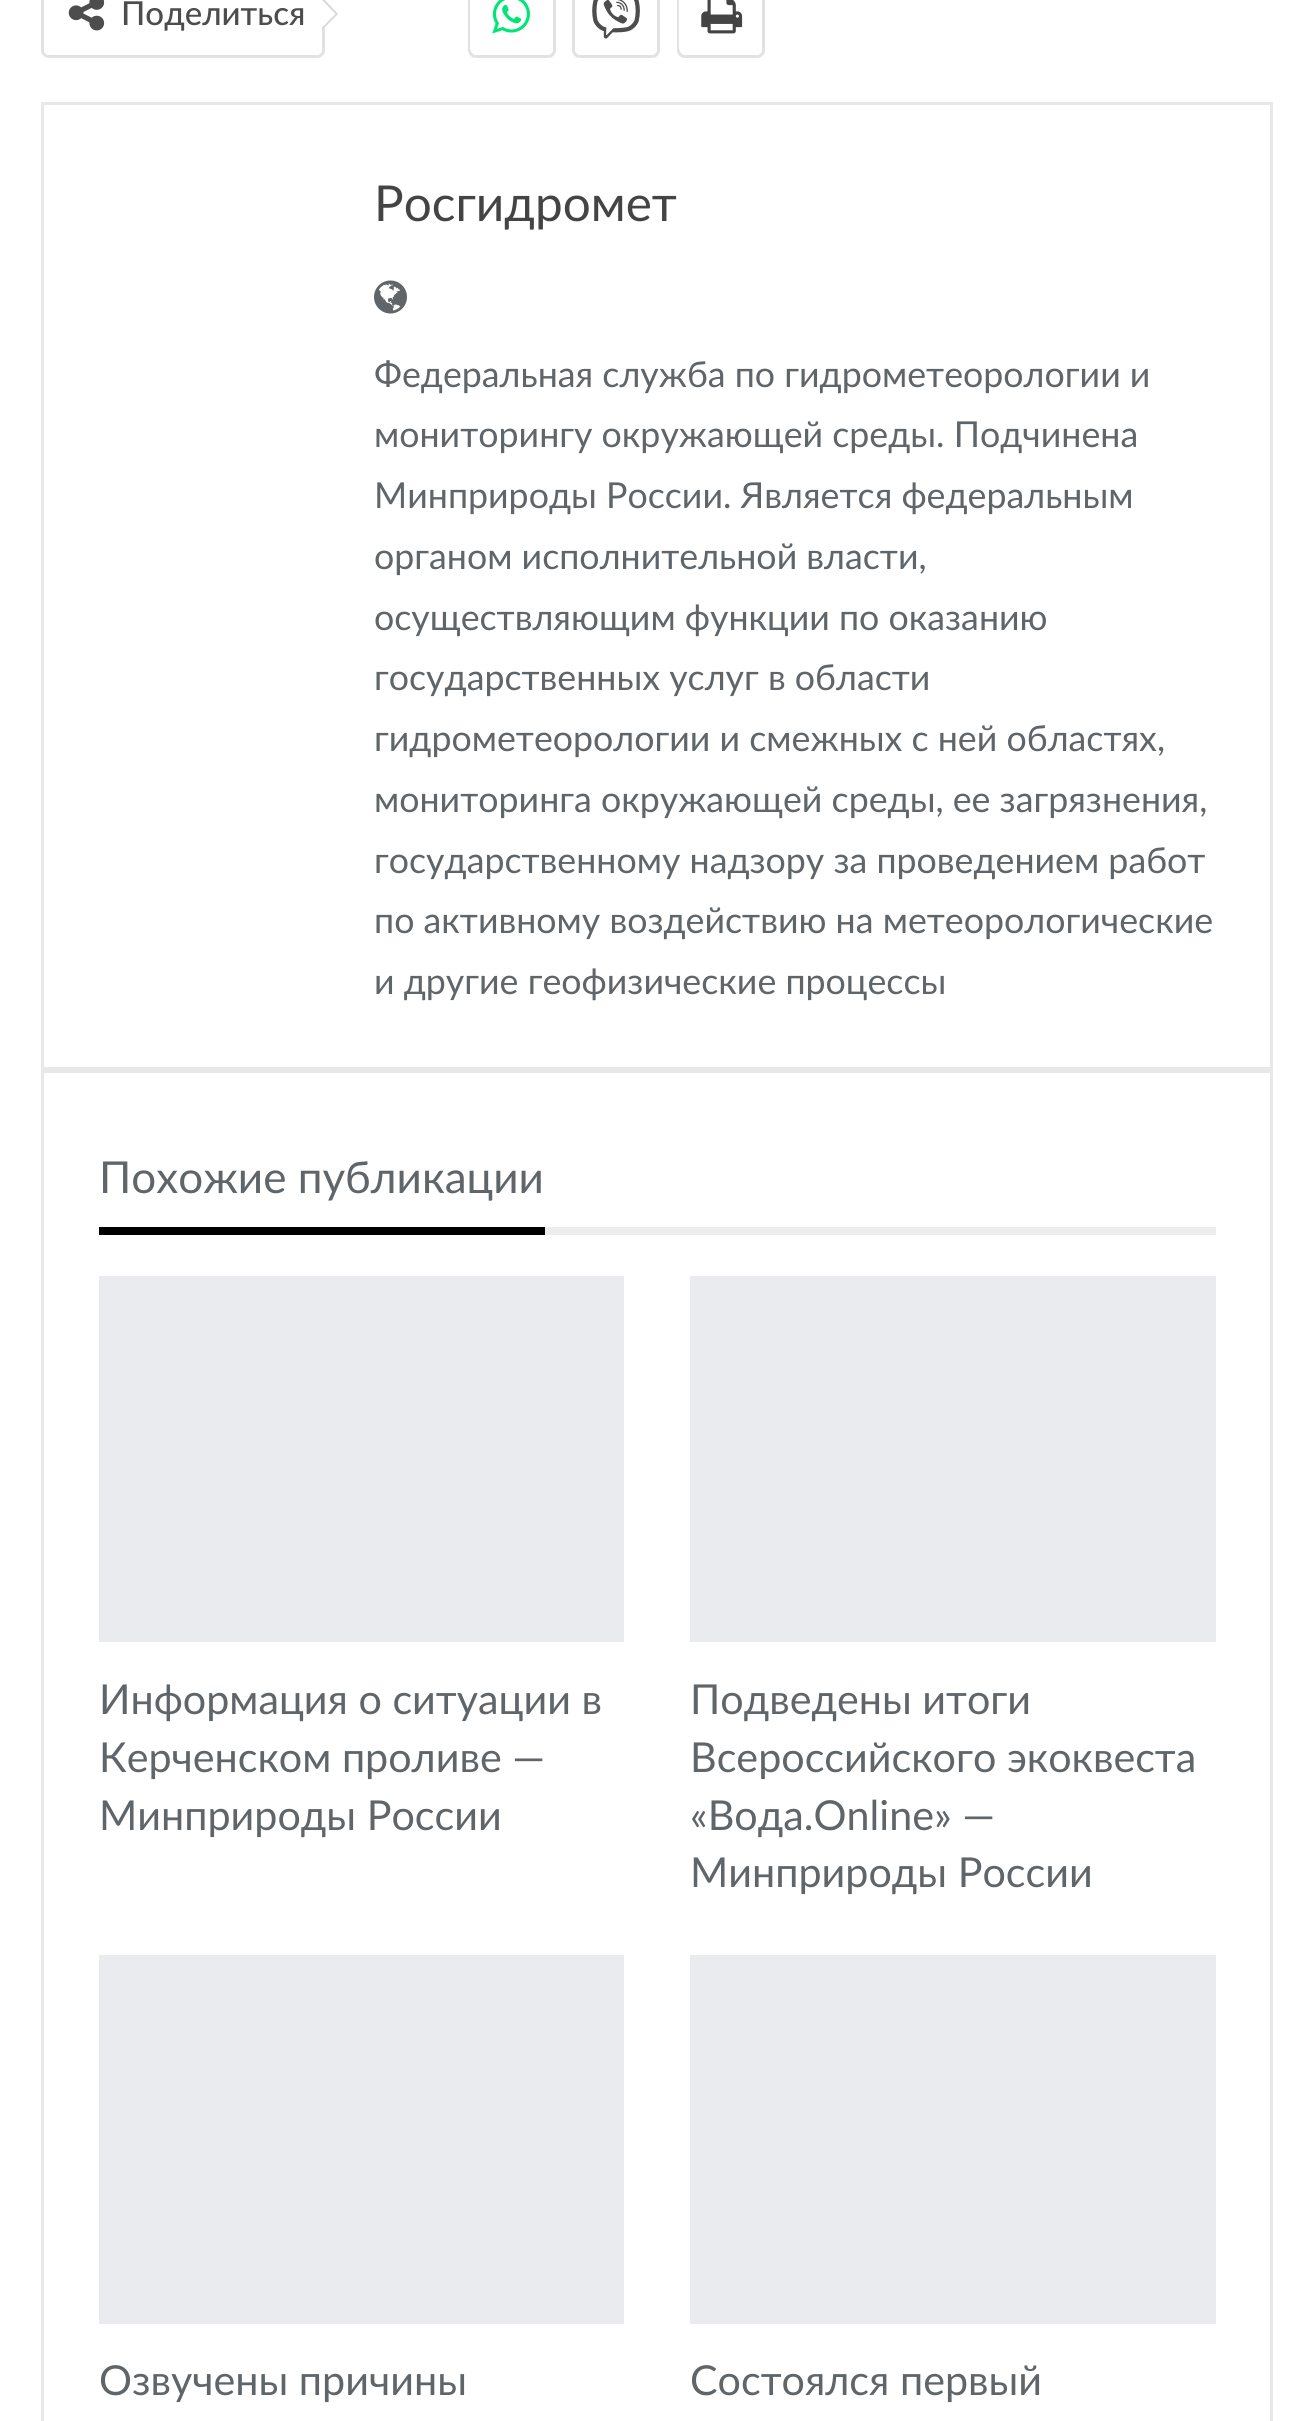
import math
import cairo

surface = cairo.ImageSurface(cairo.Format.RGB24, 1312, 2421)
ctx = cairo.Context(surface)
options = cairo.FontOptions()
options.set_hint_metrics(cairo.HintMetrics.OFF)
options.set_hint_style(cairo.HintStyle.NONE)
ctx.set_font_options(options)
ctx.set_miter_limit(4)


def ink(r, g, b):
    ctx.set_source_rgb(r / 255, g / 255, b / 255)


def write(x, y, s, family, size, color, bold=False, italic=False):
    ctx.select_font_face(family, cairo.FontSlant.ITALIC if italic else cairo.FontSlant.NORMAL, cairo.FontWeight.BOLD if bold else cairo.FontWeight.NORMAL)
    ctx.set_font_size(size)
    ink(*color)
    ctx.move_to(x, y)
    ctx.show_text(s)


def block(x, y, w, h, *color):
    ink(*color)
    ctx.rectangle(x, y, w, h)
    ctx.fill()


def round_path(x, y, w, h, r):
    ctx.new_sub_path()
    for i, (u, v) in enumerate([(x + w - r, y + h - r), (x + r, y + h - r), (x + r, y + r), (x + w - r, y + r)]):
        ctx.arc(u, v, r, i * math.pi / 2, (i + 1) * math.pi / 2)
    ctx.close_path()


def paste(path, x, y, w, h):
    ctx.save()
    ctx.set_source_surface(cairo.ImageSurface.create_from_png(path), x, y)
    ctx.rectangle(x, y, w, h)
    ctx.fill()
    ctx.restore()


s1 = dict(family="Lato Medium", size=33, color=(77, 77, 77))
s2 = dict(family="Lato", size=49.5, color=(68, 68, 68))
s3 = dict(family="Lato", size=35.75, color=(95, 101, 105))
s4 = dict(family="Lato", size=44, color=(95, 101, 105))
s5 = dict(family="Lato", size=41.25, color=(95, 101, 105))

ink(255, 255, 255)
ctx.paint()
round_path(42.5, -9.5, 281, 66, 6.5)
ink(226, 226, 226)
ctx.set_line_width(3)
ctx.stroke()
paste("pic1.png", 68, 0, 37, 31)
ink(215, 215, 215)
ctx.new_path()
ctx.move_to(322, 30)
ctx.line_to(322, -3)
ctx.line_to(338, 14)
ctx.close_path()
ctx.fill()
write(121, 25, "Поделиться", **s1)
ink(255, 255, 255)
ctx.new_path()
ctx.move_to(322, 27.5)
ctx.line_to(322, 0)
ctx.line_to(335.5, 14)
ctx.close_path()
ctx.fill()
round_path(469.5, -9.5, 85, 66, 6.5)
ink(226, 226, 226)
ctx.stroke()
ink(255, 255, 255)
round_path(470, -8, 83, 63, 8)
ctx.fill()
paste("pic2.png", 492, 0, 38, 34)
round_path(573.5, -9.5, 85, 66, 6.5)
ink(226, 226, 226)
ctx.stroke()
paste("pic3.png", 592, 0, 48, 39)
round_path(678.5, -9.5, 85, 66, 6.5)
ctx.stroke()
ink(255, 255, 255)
round_path(679, -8, 83, 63, 8)
ctx.fill()
paste("pic4.png", 701, 0, 42, 34)
ctx.rectangle(42.5, 103.5, 1229, 965)
ink(232, 232, 232)
ctx.stroke()
write(374, 221, "Росгидромет", **s2)
paste("pic5.png", 374, 280, 33, 34)
write(374, 387, "Федеральная служба по гидрометеорологии и", **s3)
write(374, 447, "мониторингу окружающей среды. Подчинена", **s3)
write(374, 508, "Минприроды России. Является федеральным", **s3)
write(374, 569, "органом исполнительной власти,", **s3)
write(374, 630, "осуществляющим функции по оказанию", **s3)
write(374, 690, "государственных услуг в области", **s3)
write(374, 751, "гидрометеорологии и смежных с ней областях,", **s3)
write(374, 812, "мониторинга окружающей среды, ее загрязнения,", **s3)
write(374, 873, "государственному надзору за проведением работ", **s3)
write(374, 933, "по активному воздействию на метеорологические", **s3)
write(374, 994, "и другие геофизические процессы", **s3)
ctx.rectangle(42.5, 1071.5, 1229, 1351)
ink(232, 232, 232)
ctx.stroke()
write(99, 1193, "Похожие публикации", **s4)
block(99, 1227, 446, 8, 0, 0, 0)
block(545, 1227, 671, 8, 237, 237, 237)
block(99, 1276, 525, 366, 233, 235, 238)
write(99, 1714, "Информация о ситуации в", **s5)
write(99, 1772, "Керченском проливе —", **s5)
write(99, 1830, "Минприроды России", **s5)
block(690, 1276, 526, 366, 233, 235, 238)
write(690, 1714, "Подведены итоги", **s5)
write(690, 1772, "Всероссийского экоквеста", **s5)
write(690, 1830, "«Вода.Online» —", **s5)
write(690, 1887, "Минприроды России", **s5)
block(99, 1955, 525, 369, 233, 235, 238)
write(99, 2395, "Озвучены причины", **s5)
block(690, 1955, 526, 369, 233, 235, 238)
write(690, 2395, "Состоялся первый", **s5)
surface.write_to_png("screenshot.png")
